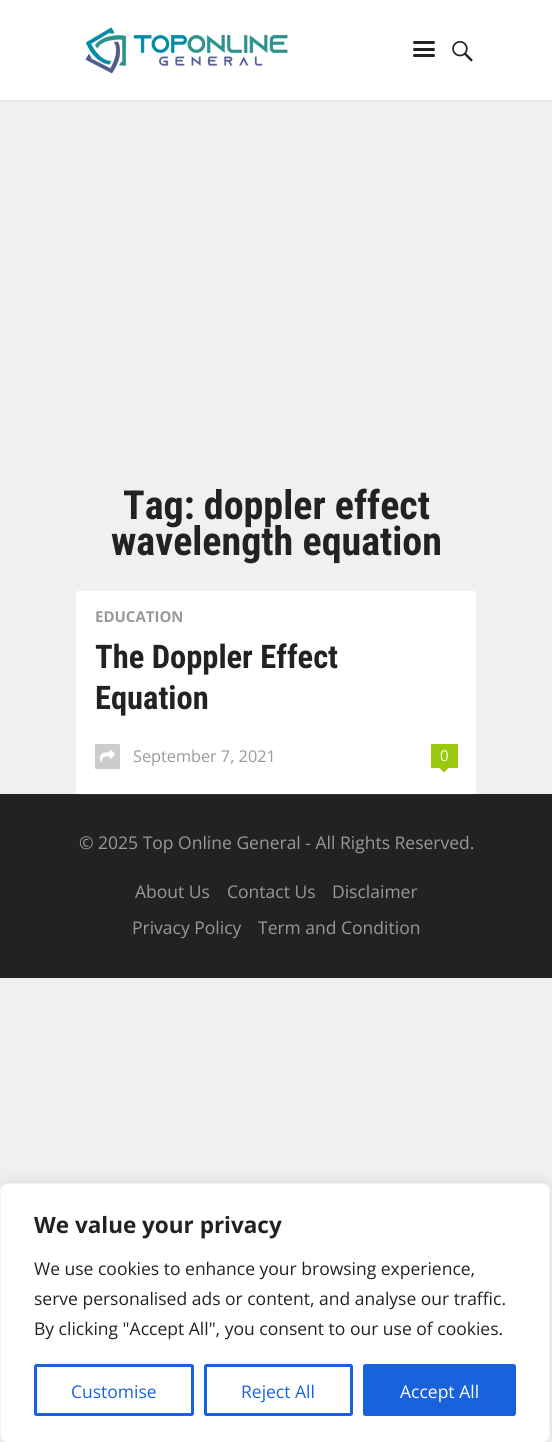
import math
import cairo

surface = cairo.ImageSurface(cairo.Format.RGB24, 552, 1442)
ctx = cairo.Context(surface)
options = cairo.FontOptions()
options.set_hint_metrics(cairo.HintMetrics.OFF)
options.set_hint_style(cairo.HintStyle.NONE)
ctx.set_font_options(options)
ctx.set_miter_limit(4)


def ink(r, g, b):
    ctx.set_source_rgb(r / 255, g / 255, b / 255)


def write(x, y, s, family, size, color, bold=False, italic=False):
    ctx.select_font_face(family, cairo.FontSlant.ITALIC if italic else cairo.FontSlant.NORMAL, cairo.FontWeight.BOLD if bold else cairo.FontWeight.NORMAL)
    ctx.set_font_size(size)
    ink(*color)
    ctx.move_to(x, y)
    ctx.show_text(s)


def block(x, y, w, h, *color):
    ink(*color)
    ctx.rectangle(x, y, w, h)
    ctx.fill()


def round_path(x, y, w, h, r):
    ctx.new_sub_path()
    for i, (u, v) in enumerate([(x + w - r, y + h - r), (x + r, y + h - r), (x + r, y + r), (x + w - r, y + r)]):
        ctx.arc(u, v, r, i * math.pi / 2, (i + 1) * math.pi / 2)
    ctx.close_path()


def blur_box(x, y, w, h, r, blur, alpha):
    ctx.push_group_with_content(cairo.Content.ALPHA)
    ctx.set_operator(cairo.Operator.SOURCE)
    for i in range(15, -16, -2):
        e = blur * i / 6
        if min(w, h) + 2 * e > 0:
            ctx.set_source_rgba(0, 0, 0, alpha * math.erfc((i - 1) / 8.5) / 2)
            round_path(x - e, y - e, w + 2 * e, h + 2 * e, max(0, min(r + e + blur * .6, min(w, h) / 2 + e)))
            ctx.fill()
    ctx.mask(ctx.pop_group())


def paste(path, x, y, w, h):
    ctx.save()
    ctx.set_source_surface(cairo.ImageSurface.create_from_png(path), x, y)
    ctx.rectangle(x, y, w, h)
    ctx.fill()
    ctx.restore()


s1 = dict(family="Roboto Condensed", size=40, color=(34, 34, 34), bold=True)
s2 = dict(family="Open Sans", size=15, color=(153, 153, 153), bold=True)
s3 = dict(family="Roboto Condensed", size=32.5, color=(34, 34, 34), bold=True)
s4 = dict(family="Open Sans", size=16.25, color=(153, 153, 153))
s5 = dict(family="Open Sans", size=15, color=(255, 255, 255))
s6 = dict(family="Open Sans", size=17.5, color=(153, 153, 153))
s7 = dict(family="Open Sans", size=22.5, color=(34, 34, 34), bold=True)
s8 = dict(family="Open Sans", size=17.5, color=(34, 34, 34))
s9 = dict(family="Open Sans", size=17.5, color=(24, 99, 220))
s10 = dict(family="Open Sans", size=17.5, color=(255, 255, 255))

ink(240, 240, 240)
ctx.paint()
block(0, 100, 552, 1, 230, 230, 230)
block(0, 0, 552, 100, 255, 255, 255)
paste("pic1.png", 85, 27, 203, 47)
ink(34, 34, 34)
round_path(413, 41, 22, 3, 1.5)
ctx.fill()
round_path(413, 48, 22, 3, 1.5)
ctx.fill()
round_path(413, 54, 22, 3, 1.5)
ctx.fill()
paste("pic2.png", 452, 41, 21, 21)
write(123, 519, "Tag: doppler effect", **s1)
write(111, 555, "wavelength equation", **s1)
block(0, 794, 552, 184, 34, 34, 34)
block(76, 794, 400, 1, 51, 51, 51)
ctx.set_source_rgba(0, 0, 0, 0.05)
ctx.new_path()
ctx.move_to(76, 594)
ctx.line_to(76, 792)
ctx.curve_to(76, 794, 77, 795, 78, 795)
ctx.line_to(474, 795)
ctx.curve_to(475, 795, 476, 794, 476, 792)
ctx.curve_to(476, 793, 475, 794, 474, 794)
ctx.line_to(79, 794)
ctx.curve_to(77, 794, 76, 793, 76, 791)
ctx.close_path()
ctx.fill()
ink(255, 255, 255)
round_path(76, 591, 400, 203, 2.5)
ctx.fill()
write(95, 622, "EDUCATION", **s2)
write(95, 668, "The Doppler Effect", **s3)
write(95, 709, "Equation", **s3)
ink(204, 204, 204)
round_path(95, 744, 25, 25, 1)
ctx.fill()
paste("pic3.png", 100, 749, 15, 14)
write(133, 762, "September 7, 2021", **s4)
ink(155, 201, 13)
round_path(431, 744, 27, 24, 1)
ctx.fill()
write(440, 761, "0", **s5)
ink(155, 201, 13)
ctx.new_path()
ctx.move_to(439, 767.5)
ctx.line_to(449, 767.5)
ctx.line_to(444, 772.5)
ctx.close_path()
ctx.fill()
write(79, 849, "© 2025 Top Online General - All Rights Reserved.", **s6)
write(135, 898, "About Us", **s6)
write(227, 898, "Contact Us", **s6)
write(332, 898, "Disclaimer", **s6)
write(132, 934, "Privacy Policy", **s6)
write(258, 934, "Term and Condition", **s6)
ink(172, 171, 171)
blur_box(0, 1181, 550, 260, 8, 6, 0.3)
ink(255, 255, 255)
round_path(0.5, 1183.5, 549, 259, 7.5)
ctx.fill_preserve()
ink(244, 244, 244)
ctx.set_line_width(1)
ctx.stroke()
write(34, 1233, "We value your privacy", **s7)
write(34, 1275, "We use cookies to enhance your browsing experience,", **s8)
write(34, 1305, "serve personalised ads or content, and analyse our traffic.", **s8)
write(34, 1335, "By clicking \"Accept All\", you consent to our use of cookies.", **s8)
round_path(35.5, 1365.5, 157, 49, 1)
ink(24, 99, 220)
ctx.set_line_width(3)
ctx.stroke()
write(71, 1398, "Customise", **s9)
round_path(205.5, 1365.5, 146, 49, 1)
ctx.stroke()
write(241, 1398, "Reject All", **s9)
round_path(364.5, 1365.5, 150, 49, 1)
ctx.fill_preserve()
ctx.stroke()
write(400, 1398, "Accept All", **s10)
surface.write_to_png("screenshot.png")
